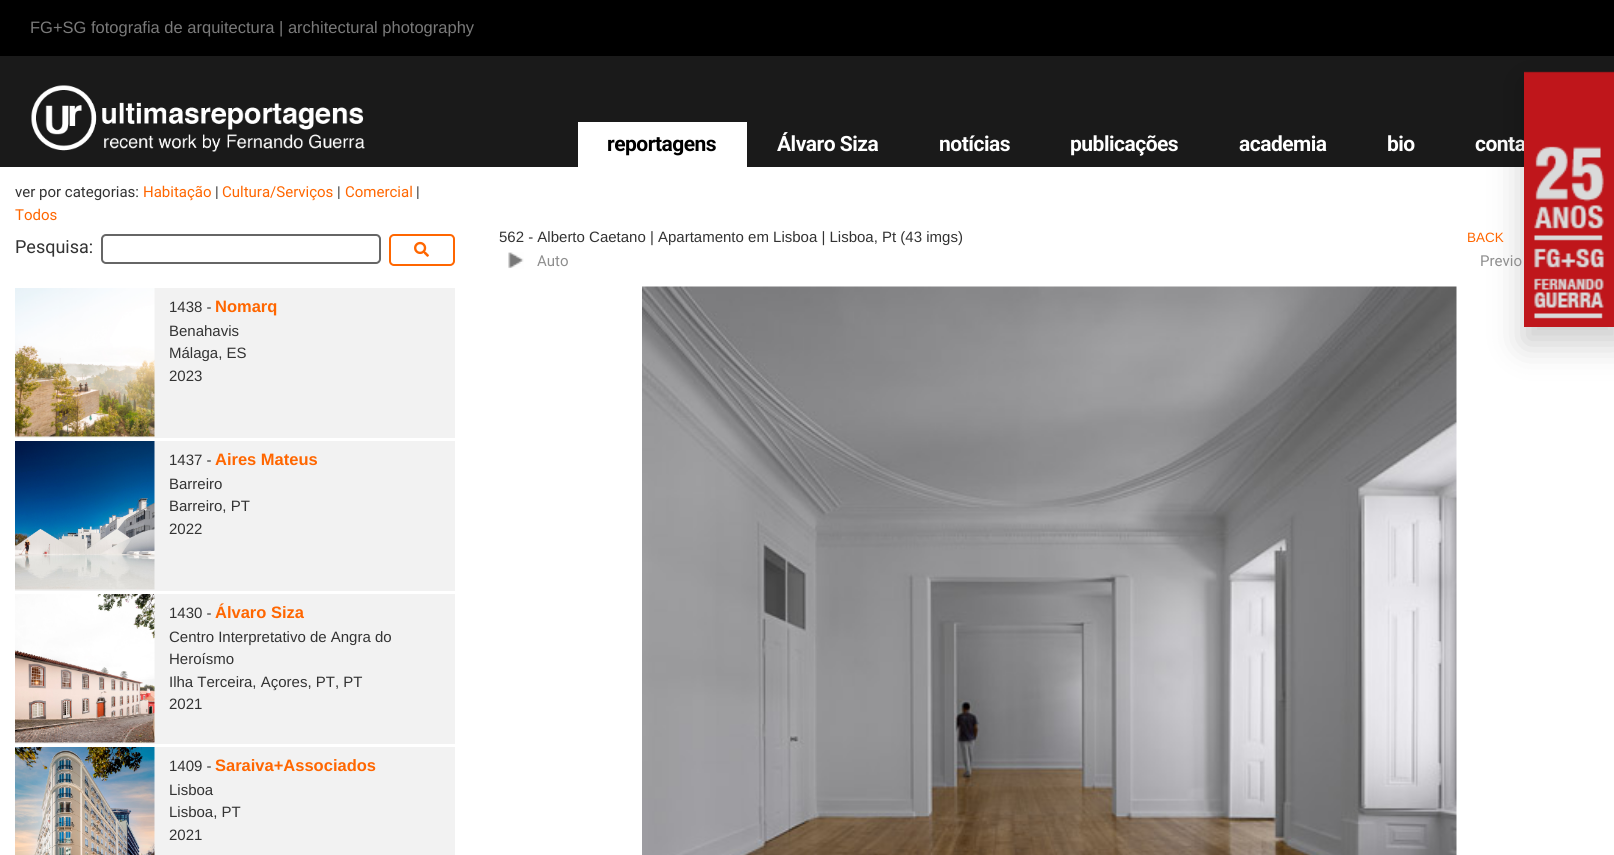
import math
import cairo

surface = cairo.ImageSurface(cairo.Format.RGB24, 1614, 855)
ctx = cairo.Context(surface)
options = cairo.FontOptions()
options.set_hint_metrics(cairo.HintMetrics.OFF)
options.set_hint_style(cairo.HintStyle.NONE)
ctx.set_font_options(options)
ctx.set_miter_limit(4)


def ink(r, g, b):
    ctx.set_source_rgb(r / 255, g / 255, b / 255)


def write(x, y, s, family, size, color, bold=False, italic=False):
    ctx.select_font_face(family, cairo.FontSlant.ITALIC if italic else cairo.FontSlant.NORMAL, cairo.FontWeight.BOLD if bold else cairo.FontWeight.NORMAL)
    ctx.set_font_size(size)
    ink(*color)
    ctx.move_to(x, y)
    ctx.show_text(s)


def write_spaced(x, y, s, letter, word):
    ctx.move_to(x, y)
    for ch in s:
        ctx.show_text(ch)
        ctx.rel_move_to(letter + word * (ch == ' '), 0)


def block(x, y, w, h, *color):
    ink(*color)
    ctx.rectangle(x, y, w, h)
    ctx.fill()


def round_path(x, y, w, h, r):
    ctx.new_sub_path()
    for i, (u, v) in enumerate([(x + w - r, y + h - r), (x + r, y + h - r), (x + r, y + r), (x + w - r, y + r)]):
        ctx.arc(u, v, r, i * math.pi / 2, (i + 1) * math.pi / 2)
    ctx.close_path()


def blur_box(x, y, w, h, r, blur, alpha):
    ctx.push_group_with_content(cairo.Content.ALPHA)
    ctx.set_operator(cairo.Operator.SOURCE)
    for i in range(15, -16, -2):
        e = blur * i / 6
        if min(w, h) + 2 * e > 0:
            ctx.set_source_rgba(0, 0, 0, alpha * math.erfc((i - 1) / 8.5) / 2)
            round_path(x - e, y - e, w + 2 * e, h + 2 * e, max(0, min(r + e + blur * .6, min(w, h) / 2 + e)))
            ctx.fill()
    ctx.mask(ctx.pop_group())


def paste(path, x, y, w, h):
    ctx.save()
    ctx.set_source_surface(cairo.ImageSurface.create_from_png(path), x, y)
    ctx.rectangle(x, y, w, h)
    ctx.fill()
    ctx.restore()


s1 = dict(family="Liberation Sans", size=16.5, color=(122, 122, 122))
s2 = dict(family="Roboto", size=15, color=(51, 51, 51))
s3 = dict(family="Roboto", size=15, color=(255, 102, 0))
s4 = dict(family="Roboto", size=18, color=(51, 51, 51))
s5 = dict(family="Liberation Sans", size=15, color=(51, 51, 51))
s6 = dict(family="Liberation Sans", size=16.5, color=(255, 102, 0), bold=True)
s7 = dict(family="Liberation Sans", size=13.5, color=(255, 102, 0))
s8 = dict(family="Roboto", size=15, color=(142, 142, 142))

ink(255, 255, 255)
ctx.paint()
block(0, 0, 1614, 56, 0, 0, 0)
write(30, 33, "FG+SG fotografia de arquitectura | architectural photography", **s1)
block(0, 56, 1614, 111, 26, 26, 26)
paste("pic1.png", 31, 85, 334, 67)
block(578, 122, 169, 45, 255, 255, 255)
ctx.select_font_face("Roboto", cairo.FontSlant.NORMAL, cairo.FontWeight.BOLD)
ctx.set_font_size(21)
ink(0, 0, 0)
write_spaced(607, 151, "reportagens", -0.5, 0)
ink(255, 255, 255)
write_spaced(777, 151, "Álvaro Siza", -0.5, 0)
write_spaced(939, 151, "notícias", -0.5, 0)
write_spaced(1070, 151, "publicações", -0.5, 0)
write_spaced(1239, 151, "academia", -0.5, 0)
write_spaced(1387, 151, "bio", -0.5, 0)
write_spaced(1475, 151, "conta", -0.5, 0)
ink(0, 0, 0)
blur_box(1523, 80, 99, 264, 0, 17, 0.2)
paste("pic2.png", 1524, 71, 90, 256)
write(15, 197, "ver por categorias:", **s2)
write(143, 197, "Habitação", **s3)
write(215, 197, "|", **s2)
write(222, 197, "Cultura/Serviços", **s3)
write(337, 197, "|", **s2)
write(345, 197, "Comercial", **s3)
write(416, 197, "|", **s2)
write(15, 220, "Todos", **s3)
write(15, 253, "Pesquisa:", **s4)
round_path(102, 235, 278, 28, 4)
ink(102, 102, 102)
ctx.stroke()
round_path(390, 235, 64, 30, 4)
ink(255, 102, 0)
ctx.stroke()
paste("pic3.png", 414, 241, 15, 16)
block(15, 288, 440, 150, 242, 242, 242)
paste("pic4.png", 15, 288, 140, 149)
write(169, 312, "1438 -", **s5)
write(215, 312, "Nomarq", **s6)
write(169, 336, "Benahavis", **s5)
write(169, 358, "Málaga, ES", **s5)
write(169, 381, "2023", **s5)
block(15, 441, 440, 150, 242, 242, 242)
paste("pic5.png", 15, 441, 140, 149)
write(169, 465, "1437 -", **s5)
write(215, 465, "Aires Mateus", **s6)
write(169, 489, "Barreiro", **s5)
write(169, 511, "Barreiro, PT", **s5)
write(169, 534, "2022", **s5)
block(15, 594, 440, 150, 242, 242, 242)
paste("pic6.png", 15, 594, 140, 149)
write(169, 618, "1430 -", **s5)
write(215, 618, "Álvaro Siza", **s6)
write(169, 642, "Centro Interpretativo de Angra do", **s5)
write(169, 664, "Heroísmo", **s5)
write(169, 687, "Ilha Terceira, Açores, PT, PT", **s5)
write(169, 709, "2021", **s5)
block(154, 747, 301, 108, 242, 242, 242)
paste("pic7.png", 15, 747, 140, 108)
write(169, 771, "1409 -", **s5)
write(215, 771, "Saraiva+Associados", **s6)
write(169, 795, "Lisboa", **s5)
write(169, 817, "Lisboa, PT", **s5)
write(169, 840, "2021", **s5)
write(499, 242, "562 - Alberto Caetano | Apartamento em Lisboa | Lisboa, Pt (43 imgs)", **s5)
write(1467, 242, "BACK", **s7)
paste("pic8.png", 508, 252, 16, 17)
write(537, 266, "Auto", **s8)
write(1480, 266, "Previo", **s8)
paste("pic9.png", 642, 286, 815, 569)
surface.write_to_png("screenshot.png")
